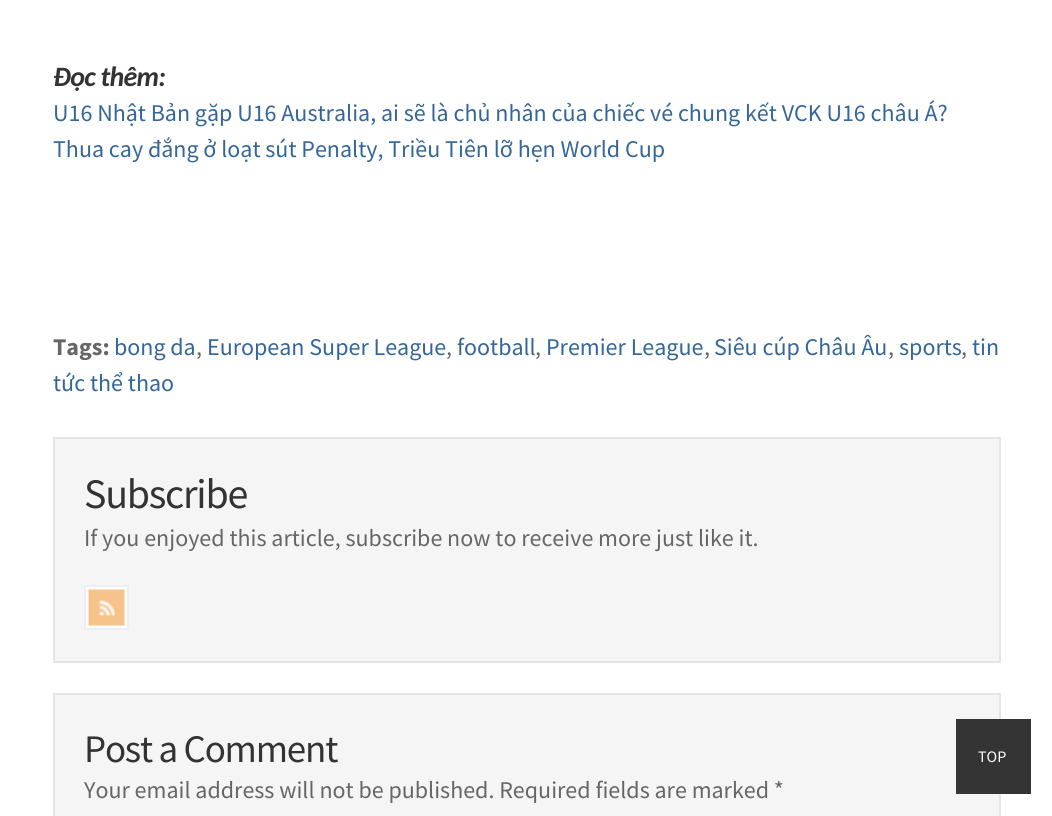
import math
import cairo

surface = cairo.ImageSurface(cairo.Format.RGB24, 1052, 816)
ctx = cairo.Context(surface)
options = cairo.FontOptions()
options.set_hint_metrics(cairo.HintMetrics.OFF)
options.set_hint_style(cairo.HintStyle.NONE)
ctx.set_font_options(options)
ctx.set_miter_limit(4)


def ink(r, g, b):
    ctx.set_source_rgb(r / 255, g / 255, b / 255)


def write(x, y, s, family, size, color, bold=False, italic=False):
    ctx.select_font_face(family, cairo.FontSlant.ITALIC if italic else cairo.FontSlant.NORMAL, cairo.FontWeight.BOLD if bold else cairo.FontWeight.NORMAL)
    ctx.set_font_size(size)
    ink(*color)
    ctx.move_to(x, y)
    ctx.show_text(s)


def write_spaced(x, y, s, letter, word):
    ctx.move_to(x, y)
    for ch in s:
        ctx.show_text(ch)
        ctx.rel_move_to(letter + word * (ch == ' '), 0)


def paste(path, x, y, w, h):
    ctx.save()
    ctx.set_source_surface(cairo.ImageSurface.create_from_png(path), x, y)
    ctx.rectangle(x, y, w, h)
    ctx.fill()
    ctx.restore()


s1 = dict(family="Source Sans Pro", size=24, color=(51, 102, 153))
s2 = dict(family="Source Sans Pro", size=24, color=(102, 102, 102), bold=True)
s3 = dict(family="Source Sans Pro", size=24, color=(102, 102, 102))
s4 = dict(family="Source Sans Pro", size=16, color=(253, 253, 253))

ink(255, 255, 255)
ctx.paint()
ctx.select_font_face("Carlito", cairo.FontSlant.ITALIC, cairo.FontWeight.BOLD)
ctx.set_font_size(28)
ink(51, 51, 51)
write_spaced(53, 86, "Đọc thêm:", -0.75, 0)
write(53, 121, "U16 Nhật Bản gặp U16 Australia, ai sẽ là chủ nhân của chiếc vé chung kết VCK U16 châu Á?", **s1)
write(53, 157, "Thua cay đắng ở loạt sút Penalty, Triều Tiên lỡ hẹn World Cup", **s1)
write(53, 355, "Tags:", **s2)
write(114, 355, "bong da", **s1)
write(196, 355, ",", **s3)
write(207, 355, "European Super League", **s1)
write(446, 355, ",", **s3)
write(457, 355, "football", **s1)
write(535, 355, ",", **s3)
write(546, 355, "Premier League", **s1)
write(704, 355, ",", **s3)
write(714, 355, "Siêu cúp Châu Âu", **s1)
write(888, 355, ",", **s3)
write(899, 355, "sports", **s1)
write(961, 355, ",", **s3)
write(972, 355, "tin", **s1)
write(53, 391, "tức thể thao", **s1)
ink(245, 245, 245)
ctx.rectangle(54, 438, 946, 224)
ctx.fill_preserve()
ink(229, 229, 229)
ctx.stroke()
ctx.set_font_size(42)
ink(51, 51, 51)
write_spaced(84, 508, "Subscribe", -1.25, 0)
write(84, 546, "If you enjoyed this article, subscribe now to receive more just like it.", **s3)
ink(255, 255, 255)
ctx.rectangle(85, 586, 43, 43)
ctx.fill_preserve()
ink(238, 238, 238)
ctx.stroke()
paste("pic1.png", 88, 589, 37, 37)
ink(245, 245, 245)
ctx.rectangle(54, 694, 946, 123)
ctx.fill_preserve()
ink(229, 229, 229)
ctx.stroke()
ctx.set_font_size(39)
ink(51, 51, 51)
write_spaced(84, 762, "Post a Comment", -1.2, 0)
write(84, 798, "Your email address will not be published. Required fields are marked *", **s3)
ctx.set_source_rgba(0.2, 0.2, 0.2, 0.99)
ctx.rectangle(956, 719, 75, 75)
ctx.fill()
write(978, 762, "TOP", **s4)
surface.write_to_png("screenshot.png")
